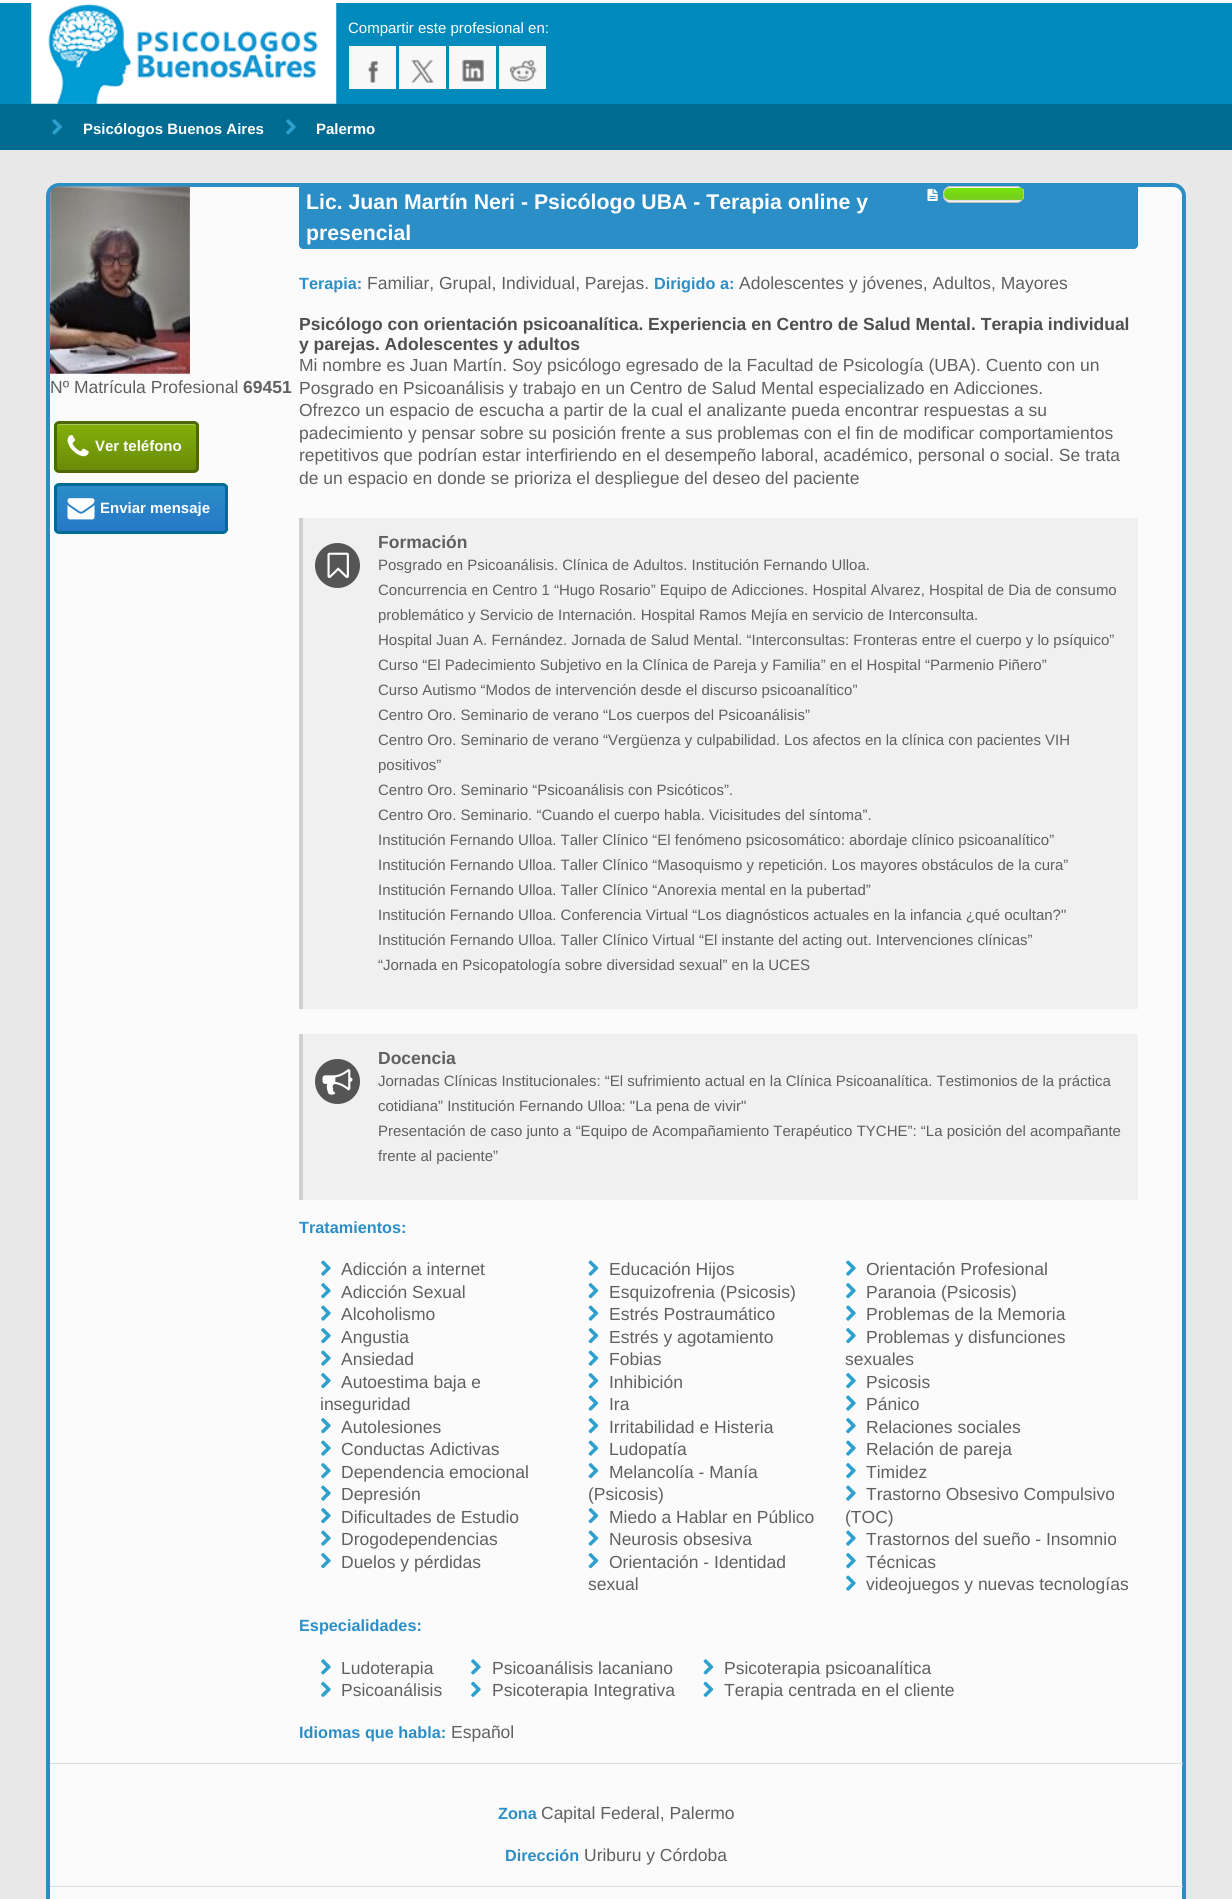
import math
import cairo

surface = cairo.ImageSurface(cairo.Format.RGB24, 1232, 1899)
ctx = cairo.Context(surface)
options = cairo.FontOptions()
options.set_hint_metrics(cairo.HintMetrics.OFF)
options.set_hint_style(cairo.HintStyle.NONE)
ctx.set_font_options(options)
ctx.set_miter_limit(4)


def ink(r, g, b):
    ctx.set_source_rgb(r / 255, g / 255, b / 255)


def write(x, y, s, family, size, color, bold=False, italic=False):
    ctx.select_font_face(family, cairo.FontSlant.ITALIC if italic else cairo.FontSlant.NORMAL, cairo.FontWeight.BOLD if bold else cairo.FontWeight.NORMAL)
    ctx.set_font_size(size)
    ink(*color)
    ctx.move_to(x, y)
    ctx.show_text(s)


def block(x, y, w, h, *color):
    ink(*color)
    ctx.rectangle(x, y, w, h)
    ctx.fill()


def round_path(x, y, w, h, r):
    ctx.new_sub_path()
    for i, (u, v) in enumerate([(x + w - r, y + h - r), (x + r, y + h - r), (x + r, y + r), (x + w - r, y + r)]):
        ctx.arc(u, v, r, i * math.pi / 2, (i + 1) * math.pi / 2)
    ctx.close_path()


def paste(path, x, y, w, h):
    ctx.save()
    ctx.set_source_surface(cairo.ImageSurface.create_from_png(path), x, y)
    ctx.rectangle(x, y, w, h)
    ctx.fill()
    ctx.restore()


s1 = dict(family="Liberation Sans", size=15, color=(255, 255, 255))
s2 = dict(family="Liberation Sans", size=15, color=(255, 255, 255), bold=True)
s3 = dict(family="Liberation Sans", size=17.5, color=(96, 96, 96))
s4 = dict(family="Liberation Sans", size=17.5, color=(96, 96, 96), bold=True)
s5 = dict(family="Liberation Sans", size=21.25, color=(255, 255, 255), bold=True)
s6 = dict(family="Liberation Sans", size=16.25, color=(43, 142, 199), bold=True)
s7 = dict(family="Liberation Sans", size=17.5, color=(79, 79, 79), bold=True)
s8 = dict(family="Liberation Sans", size=15, color=(96, 96, 96))

ink(232, 232, 232)
ctx.paint()
block(0, 3, 1232, 101, 0, 139, 188)
block(0, 0, 1232, 3, 255, 255, 255)
paste("pic1.png", 31, 3, 306, 101)
write(348, 33, "Compartir este profesional en:", **s1)
block(349, 46, 47, 43, 248, 248, 248)
paste("pic2.png", 368, 61, 10, 22)
block(399, 46, 47, 43, 248, 248, 248)
paste("pic3.png", 411, 59, 23, 24)
block(449, 46, 47, 43, 248, 248, 248)
paste("pic4.png", 462, 59, 22, 23)
block(499, 46, 47, 43, 248, 248, 248)
paste("pic5.png", 509, 59, 28, 23)
block(0, 104, 1232, 46, 0, 108, 146)
paste("pic6.png", 52, 119, 10, 16)
write(83, 134, "Psicólogos Buenos Aires", **s2)
paste("pic7.png", 286, 119, 10, 16)
write(316, 134, "Palermo", **s2)
ink(251, 251, 251)
round_path(48, 185, 1136, 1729, 11)
ctx.fill_preserve()
ink(43, 142, 199)
ctx.set_line_width(4)
ctx.stroke()
paste("pic8.png", 50, 186, 140, 188)
write(50, 393, "Nº Matrícula Profesional", **s3)
write(243, 393, "69451", **s4)
ctx.save()
round_path(54, 421, 145, 52, 5)
ctx.clip()
gradient = cairo.LinearGradient(126, 470, 126, 424)
gradient.add_color_stop_rgba(0, 0.416, 0.541, 0.035, 1)
gradient.add_color_stop_rgba(1, 0.51, 0.69, 0.039, 1)
ctx.set_source(gradient)
ctx.rectangle(54, 424, 145, 46)
ctx.fill()
ctx.restore()
ink(167, 200, 84)
ctx.new_path()
ctx.move_to(59, 425)
ctx.line_to(194, 425)
ctx.curve_to(195, 425, 196, 426, 196, 428)
ctx.line_to(196, 426)
ctx.curve_to(196, 425, 195, 424, 194, 424)
ctx.line_to(58, 424)
ctx.curve_to(57, 424, 56, 425, 56, 426)
ctx.line_to(56, 428)
ctx.curve_to(56, 426, 57, 425, 59, 425)
ctx.close_path()
ctx.fill()
round_path(55.5, 422.5, 142, 49, 3.5)
ink(79, 104, 6)
ctx.set_line_width(3)
ctx.stroke()
paste("pic9.png", 67, 435, 22, 22)
write(95, 451, "Ver teléfono", **s2)
ctx.save()
round_path(54, 483, 174, 51, 5)
ctx.clip()
gradient = cairo.LinearGradient(141, 531, 141, 485)
gradient.add_color_stop_rgba(0, 0.153, 0.471, 0.784, 1)
gradient.add_color_stop_rgba(1, 0.169, 0.557, 0.78, 1)
ctx.set_source(gradient)
ctx.rectangle(54, 485, 174, 46)
ctx.fill()
ctx.restore()
round_path(55.5, 484.5, 171, 48, 3.5)
ink(0, 108, 146)
ctx.stroke()
paste("pic10.png", 67, 498, 28, 22)
write(100, 513, "Enviar mensaje", **s2)
ink(43, 142, 199)
ctx.new_path()
ctx.move_to(299, 186)
ctx.line_to(1138, 186)
ctx.line_to(1138, 245)
ctx.curve_to(1138, 247, 1136, 249, 1134, 249)
ctx.line_to(303, 249)
ctx.curve_to(301, 249, 299, 247, 299, 245)
ctx.close_path()
ctx.fill()
write(306, 209, "Lic. Juan Martín Neri - Psicólogo UBA - Terapia online y", **s5)
write(306, 240, "presencial", **s5)
paste("pic11.png", 927, 188, 11, 13)
ink(246, 246, 246)
round_path(943, 186, 81, 17, 8)
ctx.fill()
ink(222, 222, 222)
ctx.new_path()
ctx.move_to(944, 193)
ctx.curve_to(945, 201, 955, 199, 961, 199)
ctx.line_to(1005, 199)
ctx.curve_to(1013, 199, 1023, 202, 1022, 191)
ctx.curve_to(1023, 192, 1023, 194, 1023, 196)
ctx.curve_to(1021, 203, 1010, 201, 1006, 201)
ctx.line_to(961, 201)
ctx.curve_to(955, 201, 942, 203, 944, 193)
ctx.close_path()
ctx.fill()
round_path(943.5, 186.5, 80, 16, 7.5)
ink(190, 190, 190)
ctx.set_line_width(1)
ctx.stroke()
ink(128, 242, 13)
ctx.new_path()
ctx.move_to(950, 188)
ctx.line_to(1021, 188)
ctx.curve_to(1022.5, 188, 1024, 189.5, 1024, 191)
ctx.line_to(1024, 197)
ctx.curve_to(1024, 198.5, 1022.5, 200, 1021, 200)
ctx.line_to(950, 200)
ctx.curve_to(946.5, 200, 944, 197.5, 944, 194)
ctx.curve_to(944, 190.5, 946.5, 188, 950, 188)
ctx.close_path()
ctx.fill()
gradient = cairo.LinearGradient(983, 200, 983, 188)
gradient.add_color_stop_rgba(0, 0.392, 0.392, 0.392, 0.25)
gradient.add_color_stop_rgba(1, 0.059, 0.059, 0.059, 0.05)
ctx.set_source(gradient)
ctx.new_path()
ctx.move_to(950, 188)
ctx.line_to(1021, 188)
ctx.curve_to(1022.5, 188, 1024, 189.5, 1024, 191)
ctx.line_to(1024, 197)
ctx.curve_to(1024, 198.5, 1022.5, 200, 1021, 200)
ctx.line_to(950, 200)
ctx.curve_to(946.5, 200, 944, 197.5, 944, 194)
ctx.curve_to(944, 190.5, 946.5, 188, 950, 188)
ctx.close_path()
ctx.fill()
block(1023, 189, 1, 10, 190, 190, 190)
write(299, 289, "Terapia:", **s6)
write(367, 289, "Familiar, Grupal, Individual, Parejas.", **s3)
write(654, 289, "Dirigido a:", **s6)
write(739, 289, "Adolescentes y jóvenes, Adultos, Mayores", **s3)
write(299, 330, "Psicólogo con orientación psicoanalítica. Experiencia en Centro de Salud Mental. Terapia individual", **s7)
write(299, 350, "y parejas. Adolescentes y adultos", **s7)
write(299, 371, "Mi nombre es Juan Martín. Soy psicólogo egresado de la Facultad de Psicología (UBA). Cuento con un", **s3)
write(299, 394, "Posgrado en Psicoanálisis y trabajo en un Centro de Salud Mental especializado en Adicciones.", **s3)
write(299, 416, "Ofrezco un espacio de escucha a partir de la cual el analizante pueda encontrar respuestas a su", **s3)
write(299, 439, "padecimiento y pensar sobre su posición frente a sus problemas con el fin de modificar comportamientos", **s3)
write(299, 461, "repetitivos que podrían estar interfiriendo en el desempeño laboral, académico, personal o social. Se trata", **s3)
write(299, 484, "de un espacio en donde se prioriza el despliegue del deseo del paciente", **s3)
block(303, 518, 835, 491, 240, 240, 240)
block(299, 518, 4, 491, 208, 208, 208)
ink(85, 85, 85)
ctx.new_path()
ctx.arc(337.5, 565.5, 22.5, 0, 2 * math.pi)
ctx.fill()
paste("pic12.png", 327, 552, 22, 26)
write(378, 548, "Formación", **s4)
write(378, 570, "Posgrado en Psicoanálisis. Clínica de Adultos. Institución Fernando Ulloa.", **s8)
write(378, 595, "Concurrencia en Centro 1 “Hugo Rosario” Equipo de Adicciones. Hospital Alvarez, Hospital de Dia de consumo", **s8)
write(378, 620, "problemático y Servicio de Internación. Hospital Ramos Mejía en servicio de Interconsulta.", **s8)
write(378, 645, "Hospital Juan A. Fernández. Jornada de Salud Mental. “Interconsultas: Fronteras entre el cuerpo y lo psíquico”", **s8)
write(378, 670, "Curso “El Padecimiento Subjetivo en la Clínica de Pareja y Familia” en el Hospital “Parmenio Piñero”", **s8)
write(378, 695, "Curso Autismo “Modos de intervención desde el discurso psicoanalítico”", **s8)
write(378, 720, "Centro Oro. Seminario de verano “Los cuerpos del Psicoanálisis”", **s8)
write(378, 745, "Centro Oro. Seminario de verano “Vergüenza y culpabilidad. Los afectos en la clínica con pacientes VIH", **s8)
write(378, 770, "positivos”", **s8)
write(378, 795, "Centro Oro. Seminario “Psicoanálisis con Psicóticos”.", **s8)
write(378, 820, "Centro Oro. Seminario. “Cuando el cuerpo habla. Vicisitudes del síntoma”.", **s8)
write(378, 845, "Institución Fernando Ulloa. Taller Clínico “El fenómeno psicosomático: abordaje clínico psicoanalítico”", **s8)
write(378, 870, "Institución Fernando Ulloa. Taller Clínico “Masoquismo y repetición. Los mayores obstáculos de la cura”", **s8)
write(378, 895, "Institución Fernando Ulloa. Taller Clínico “Anorexia mental en la pubertad”", **s8)
write(378, 920, "Institución Fernando Ulloa. Conferencia Virtual “Los diagnósticos actuales en la infancia ¿qué ocultan?\"", **s8)
write(378, 945, "Institución Fernando Ulloa. Taller Clínico Virtual “El instante del acting out. Intervenciones clínicas”", **s8)
write(378, 970, "“Jornada en Psicopatología sobre diversidad sexual” en la UCES", **s8)
block(303, 1034, 835, 166, 240, 240, 240)
block(299, 1034, 4, 166, 208, 208, 208)
ink(85, 85, 85)
ctx.new_path()
ctx.arc(337.5, 1081.5, 22.5, 0, 2 * math.pi)
ctx.fill()
paste("pic13.png", 322, 1069, 31, 26)
write(378, 1064, "Docencia", **s4)
write(378, 1086, "Jornadas Clínicas Institucionales: “El sufrimiento actual en la Clínica Psicoanalítica. Testimonios de la práctica", **s8)
write(378, 1111, "cotidiana” Institución Fernando Ulloa: \"La pena de vivir\"", **s8)
write(378, 1136, "Presentación de caso junto a “Equipo de Acompañamiento Terapéutico TYCHE”: “La posición del acompañante", **s8)
write(378, 1161, "frente al paciente”", **s8)
write(299, 1233, "Tratamientos:", **s6)
paste("pic14.png", 321, 1260, 10, 16)
write(341, 1275, "Adicción a internet", **s3)
paste("pic15.png", 321, 1283, 10, 16)
write(341, 1298, "Adicción Sexual", **s3)
paste("pic14.png", 321, 1305, 10, 16)
write(341, 1320, "Alcoholismo", **s3)
paste("pic15.png", 321, 1328, 10, 16)
write(341, 1343, "Angustia", **s3)
paste("pic14.png", 321, 1350, 10, 16)
write(341, 1365, "Ansiedad", **s3)
paste("pic15.png", 321, 1373, 10, 16)
write(341, 1388, "Autoestima baja e", **s3)
write(320, 1410, "inseguridad", **s3)
paste("pic15.png", 321, 1418, 10, 16)
write(341, 1433, "Autolesiones", **s3)
paste("pic14.png", 321, 1440, 10, 16)
write(341, 1455, "Conductas Adictivas", **s3)
paste("pic15.png", 321, 1463, 10, 16)
write(341, 1478, "Dependencia emocional", **s3)
paste("pic14.png", 321, 1485, 10, 16)
write(341, 1500, "Depresión", **s3)
paste("pic15.png", 321, 1508, 10, 16)
write(341, 1523, "Dificultades de Estudio", **s3)
paste("pic14.png", 321, 1530, 10, 16)
write(341, 1545, "Drogodependencias", **s3)
paste("pic15.png", 321, 1553, 10, 16)
write(341, 1568, "Duelos y pérdidas", **s3)
paste("pic16.png", 588, 1260, 11, 16)
write(609, 1275, "Educación Hijos", **s3)
paste("pic17.png", 588, 1283, 11, 16)
write(609, 1298, "Esquizofrenia (Psicosis)", **s3)
paste("pic16.png", 588, 1305, 11, 16)
write(609, 1320, "Estrés Postraumático", **s3)
paste("pic17.png", 588, 1328, 11, 16)
write(609, 1343, "Estrés y agotamiento", **s3)
paste("pic16.png", 588, 1350, 11, 16)
write(609, 1365, "Fobias", **s3)
paste("pic17.png", 588, 1373, 11, 16)
write(609, 1388, "Inhibición", **s3)
paste("pic16.png", 588, 1395, 11, 16)
write(609, 1410, "Ira", **s3)
paste("pic17.png", 588, 1418, 11, 16)
write(609, 1433, "Irritabilidad e Histeria", **s3)
paste("pic16.png", 588, 1440, 11, 16)
write(609, 1455, "Ludopatía", **s3)
paste("pic17.png", 588, 1463, 11, 16)
write(609, 1478, "Melancolía - Manía", **s3)
write(588, 1500, "(Psicosis)", **s3)
paste("pic17.png", 588, 1508, 11, 16)
write(609, 1523, "Miedo a Hablar en Público", **s3)
paste("pic16.png", 588, 1530, 11, 16)
write(609, 1545, "Neurosis obsesiva", **s3)
paste("pic17.png", 588, 1553, 11, 16)
write(609, 1568, "Orientación - Identidad", **s3)
write(588, 1590, "sexual", **s3)
paste("pic14.png", 846, 1260, 10, 16)
write(866, 1275, "Orientación Profesional", **s3)
paste("pic15.png", 846, 1283, 10, 16)
write(866, 1298, "Paranoia (Psicosis)", **s3)
paste("pic14.png", 846, 1305, 10, 16)
write(866, 1320, "Problemas de la Memoria", **s3)
paste("pic15.png", 846, 1328, 10, 16)
write(866, 1343, "Problemas y disfunciones", **s3)
write(845, 1365, "sexuales", **s3)
paste("pic15.png", 846, 1373, 10, 16)
write(866, 1388, "Psicosis", **s3)
paste("pic14.png", 846, 1395, 10, 16)
write(866, 1410, "Pánico", **s3)
paste("pic15.png", 846, 1418, 10, 16)
write(866, 1433, "Relaciones sociales", **s3)
paste("pic14.png", 846, 1440, 10, 16)
write(866, 1455, "Relación de pareja", **s3)
paste("pic15.png", 846, 1463, 10, 16)
write(866, 1478, "Timidez", **s3)
paste("pic14.png", 846, 1485, 10, 16)
write(866, 1500, "Trastorno Obsesivo Compulsivo", **s3)
write(845, 1523, "(TOC)", **s3)
paste("pic14.png", 846, 1530, 10, 16)
write(866, 1545, "Trastornos del sueño - Insomnio", **s3)
paste("pic15.png", 846, 1553, 10, 16)
write(866, 1568, "Técnicas", **s3)
paste("pic14.png", 846, 1575, 10, 16)
write(866, 1590, "videojuegos y nuevas tecnologías", **s3)
write(299, 1631, "Especialidades:", **s6)
paste("pic18.png", 321, 1659, 10, 16)
write(341, 1674, "Ludoterapia", **s3)
paste("pic19.png", 321, 1681, 10, 16)
write(341, 1696, "Psicoanálisis", **s3)
paste("pic18.png", 471, 1659, 10, 16)
write(492, 1674, "Psicoanálisis lacaniano", **s3)
paste("pic19.png", 471, 1681, 10, 16)
write(492, 1696, "Psicoterapia Integrativa", **s3)
paste("pic20.png", 703, 1659, 11, 16)
write(724, 1674, "Psicoterapia psicoanalítica", **s3)
paste("pic21.png", 703, 1681, 11, 16)
write(724, 1696, "Terapia centrada en el cliente", **s3)
write(299, 1738, "Idiomas que habla:", **s6)
write(451, 1738, "Español", **s3)
block(50, 1763, 1133, 1, 221, 221, 221)
write(498, 1819, "Zona", **s6)
write(541, 1819, "Capital Federal, Palermo", **s3)
write(505, 1861, "Dirección", **s6)
write(584, 1861, "Uriburu y Córdoba", **s3)
block(50, 1886, 1133, 1, 221, 221, 221)
surface.write_to_png("screenshot.png")
